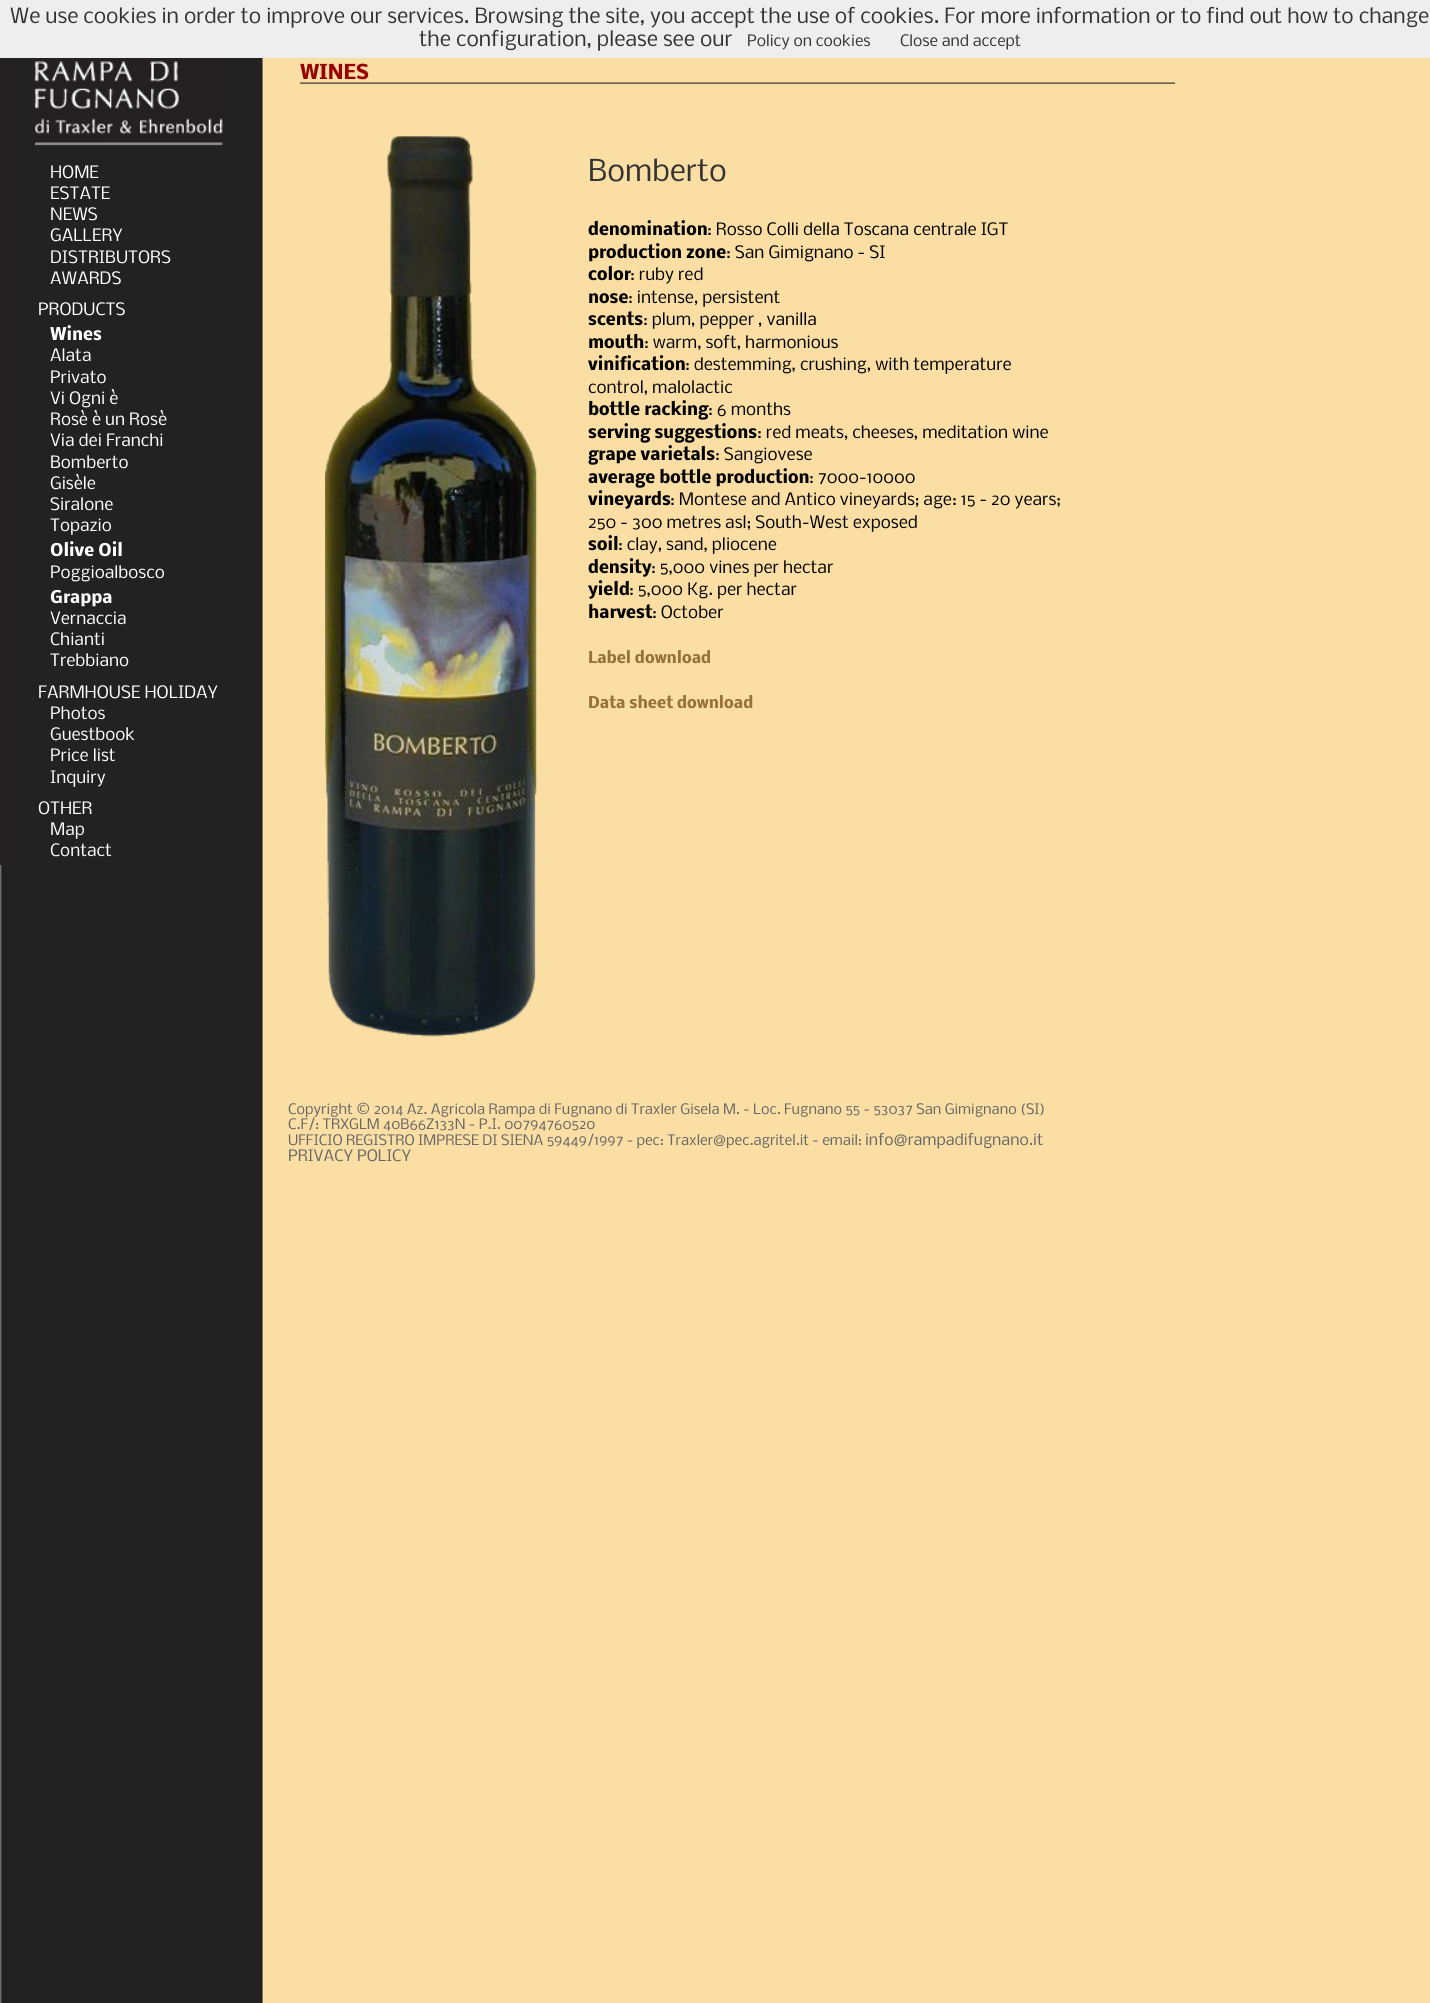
import math
import cairo

surface = cairo.ImageSurface(cairo.Format.RGB24, 1430, 2003)
ctx = cairo.Context(surface)
options = cairo.FontOptions()
options.set_hint_metrics(cairo.HintMetrics.OFF)
options.set_hint_style(cairo.HintStyle.NONE)
ctx.set_font_options(options)
ctx.set_miter_limit(4)


def ink(r, g, b):
    ctx.set_source_rgb(r / 255, g / 255, b / 255)


def write(x, y, s, family, size, color, bold=False, italic=False):
    ctx.select_font_face(family, cairo.FontSlant.ITALIC if italic else cairo.FontSlant.NORMAL, cairo.FontWeight.BOLD if bold else cairo.FontWeight.NORMAL)
    ctx.set_font_size(size)
    ink(*color)
    ctx.move_to(x, y)
    ctx.show_text(s)


def block(x, y, w, h, *color):
    ink(*color)
    ctx.rectangle(x, y, w, h)
    ctx.fill()


def paste(path, x, y, w, h):
    ctx.save()
    ctx.set_source_surface(cairo.ImageSurface.create_from_png(path), x, y)
    ctx.rectangle(x, y, w, h)
    ctx.fill()
    ctx.restore()


s1 = dict(family="Nobile", size=20, color=(51, 51, 51))
s2 = dict(family="Nobile", size=15, color=(51, 51, 51))
s3 = dict(family="Nobile", size=16.25, color=(255, 255, 255))
s4 = dict(family="Nobile", size=16.25, color=(255, 255, 255), bold=True)
s5 = dict(family="Nobile", size=19, color=(153, 0, 0), bold=True)
s6 = dict(family="Nobile", size=28.75, color=(51, 51, 51))
s7 = dict(family="Nobile", size=16.25, color=(0, 0, 0), bold=True)
s8 = dict(family="Nobile", size=16.25, color=(0, 0, 0))
s9 = dict(family="Nobile", size=15, color=(150, 114, 58), bold=True)
s10 = dict(family="Nobile", size=13.75, color=(102, 102, 102))
s11 = dict(family="Nobile", size=15, color=(102, 102, 102))

ink(250, 222, 163)
ctx.paint()
paste("pic1.png", 0, 58, 268, 1945)
block(0, 0, 1430, 58, 238, 238, 238)
write(10, 23, "We use cookies in order to improve our services. Browsing the site, you accept the use of cookies. For more information or to find out how to change", **s1)
write(419, 46, "the configuration, please see our", **s1)
write(747, 46, "Policy on cookies", **s2)
write(900, 46, "Close and accept", **s2)
block(0, 58, 9, 807, 35, 33, 33)
paste("pic2.png", 34, 58, 192, 88)
write(50, 178, "HOME", **s3)
write(50, 199, "ESTATE", **s3)
write(50, 220, "NEWS", **s3)
write(50, 241, "GALLERY", **s3)
write(50, 263, "DISTRIBUTORS", **s3)
write(50, 284, "AWARDS", **s3)
write(38, 315, "PRODUCTS", **s3)
write(50, 340, "Wines", **s4)
write(50, 361, "Alata", **s3)
write(50, 383, "Privato", **s3)
write(50, 404, "Vi Ogni è", **s3)
write(50, 425, "Rosè è un Rosè", **s3)
write(50, 446, "Via dei Franchi", **s3)
write(50, 468, "Bomberto", **s3)
write(50, 489, "Gisèle", **s3)
write(50, 510, "Siralone", **s3)
write(50, 531, "Topazio", **s3)
write(50, 556, "Olive Oil", **s4)
write(50, 578, "Poggioalbosco", **s3)
write(50, 603, "Grappa", **s4)
write(50, 624, "Vernaccia", **s3)
write(50, 645, "Chianti", **s3)
write(50, 666, "Trebbiano", **s3)
write(38, 698, "FARMHOUSE HOLIDAY", **s3)
write(50, 719, "Photos", **s3)
write(50, 740, "Guestbook", **s3)
write(50, 761, "Price list", **s3)
write(50, 783, "Inquiry", **s3)
write(38, 814, "OTHER", **s3)
write(50, 835, "Map", **s3)
write(50, 856, "Contact", **s3)
paste("pic3.png", 300, 82, 875, 2)
write(300, 79, "WINES", **s5)
paste("pic4.png", 325, 136, 212, 901)
write(588, 181, "Bomberto", **s6)
write(588, 235, "denomination", **s7)
write(707, 235, ": Rosso Colli della Toscana centrale IGT", **s8)
write(588, 258, "production zone", **s7)
write(726, 258, ": San Gimignano - SI", **s8)
write(588, 280, "color", **s7)
write(630, 280, ": ruby red", **s8)
write(588, 303, "nose", **s7)
write(628, 303, ": intense, persistent", **s8)
write(588, 325, "scents", **s7)
write(643, 325, ": plum, pepper , vanilla", **s8)
write(588, 348, "mouth", **s7)
write(644, 348, ": warm, soft, harmonious", **s8)
write(588, 370, "vinification", **s7)
write(685, 370, ": destemming, crushing, with temperature", **s8)
write(588, 393, "control, malolactic", **s8)
write(588, 415, "bottle racking", **s7)
write(708, 415, ": 6 months", **s8)
write(588, 438, "serving suggestions", **s7)
write(757, 438, ": red meats, cheeses, meditation wine", **s8)
write(588, 460, "grape varietals", **s7)
write(715, 460, ": Sangiovese", **s8)
write(588, 483, "average bottle production", **s7)
write(809, 483, ": 7000-10000", **s8)
write(588, 505, "vineyards", **s7)
write(670, 505, ": Montese and Antico vineyards; age: 15 - 20 years;", **s8)
write(588, 528, "250 - 300 metres asl; South-West exposed", **s8)
write(588, 550, "soil", **s7)
write(618, 550, ": clay, sand, pliocene", **s8)
write(588, 573, "density", **s7)
write(651, 573, ": 5,000 vines per hectar", **s8)
write(588, 595, "yield", **s7)
write(629, 595, ": 5,000 Kg. per hectar", **s8)
write(588, 618, "harvest", **s7)
write(652, 618, ": October", **s8)
write(588, 663, "Label download", **s9)
write(588, 708, "Data sheet download", **s9)
write(288, 1114, "Copyright © 2014 Az. Agricola Rampa di Fugnano di Traxler Gisela M. - Loc. Fugnano 55 - 53037 San Gimignano (SI)", **s10)
write(288, 1129, "C.F/: TRXGLM 40B66Z133N - P.I. 00794760520", **s10)
write(288, 1145, "UFFICIO REGISTRO IMPRESE DI SIENA 59449/1997 - pec: Traxler@pec.agritel.it - email:", **s10)
write(865, 1145, "info@rampadifugnano.it", **s11)
write(288, 1161, "PRIVACY POLICY", **s11)
surface.write_to_png("screenshot.png")
